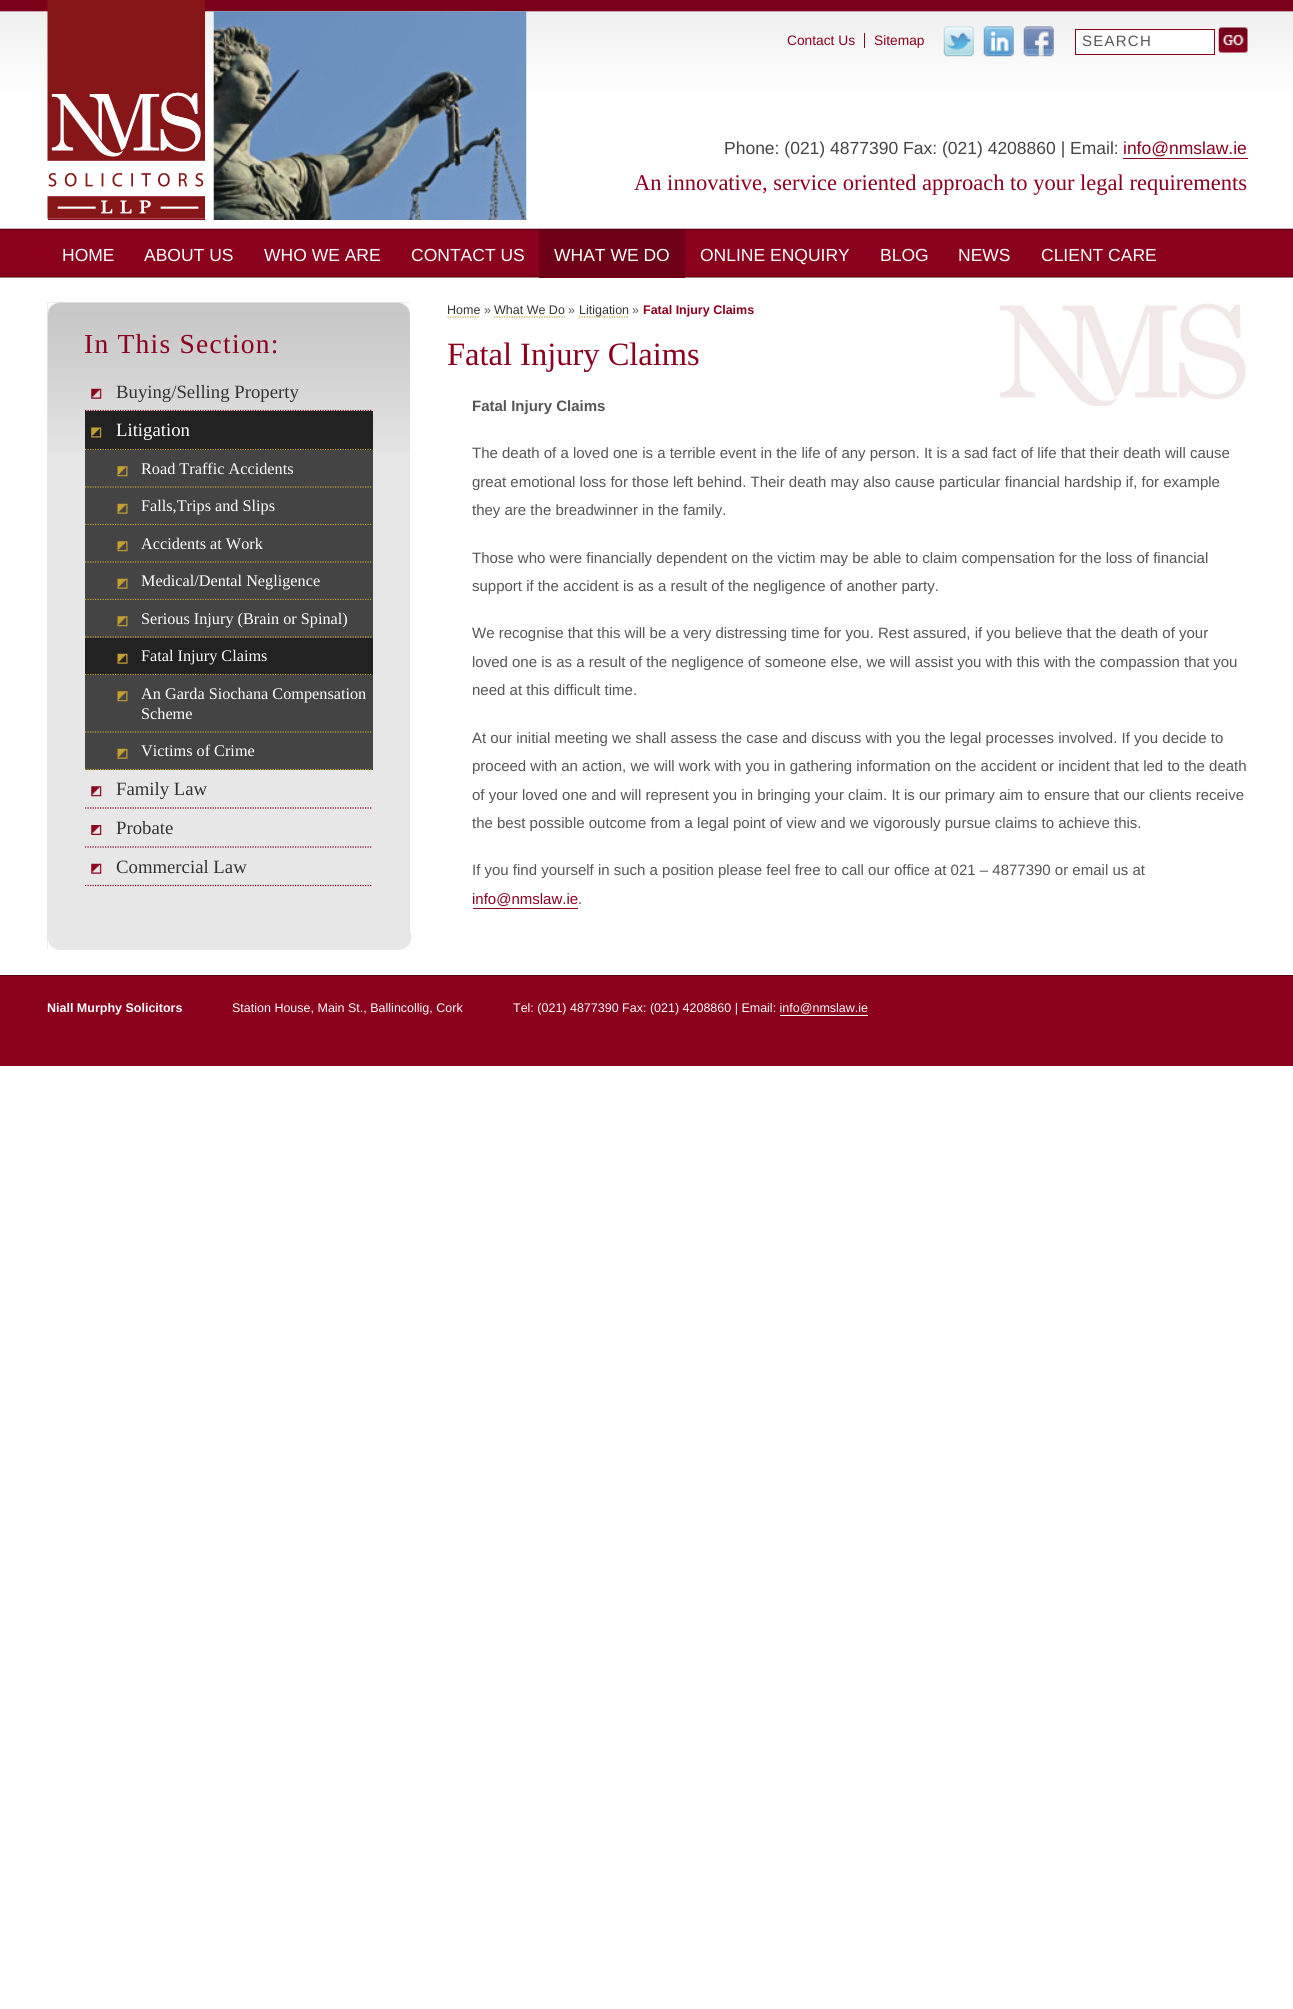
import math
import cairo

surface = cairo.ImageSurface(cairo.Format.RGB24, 1293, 2009)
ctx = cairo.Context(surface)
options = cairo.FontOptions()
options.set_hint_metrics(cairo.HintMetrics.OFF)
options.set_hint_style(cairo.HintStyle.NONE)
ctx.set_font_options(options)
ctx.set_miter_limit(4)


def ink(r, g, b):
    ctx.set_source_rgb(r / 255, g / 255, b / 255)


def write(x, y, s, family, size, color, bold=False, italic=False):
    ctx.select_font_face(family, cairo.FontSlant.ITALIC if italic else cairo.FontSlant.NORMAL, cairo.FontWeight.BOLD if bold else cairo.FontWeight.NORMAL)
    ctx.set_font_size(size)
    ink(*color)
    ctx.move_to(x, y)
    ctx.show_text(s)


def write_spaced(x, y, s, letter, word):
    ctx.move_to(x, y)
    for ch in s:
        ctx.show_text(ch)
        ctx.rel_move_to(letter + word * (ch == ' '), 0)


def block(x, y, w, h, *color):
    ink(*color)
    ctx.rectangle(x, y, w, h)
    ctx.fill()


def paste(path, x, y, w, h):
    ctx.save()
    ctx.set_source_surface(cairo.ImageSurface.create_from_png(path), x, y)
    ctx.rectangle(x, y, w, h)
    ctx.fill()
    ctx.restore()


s1 = dict(family="Liberation Sans", size=13.75, color=(139, 0, 29))
s2 = dict(family="Liberation Sans", size=17.5, color=(68, 68, 68))
s3 = dict(family="Liberation Sans", size=17.5, color=(139, 0, 29))
s4 = dict(family="Liberation Serif", size=22.5, color=(139, 0, 29))
s5 = dict(family="Liberation Sans", size=17.5, color=(255, 255, 255))
s6 = dict(family="Liberation Serif", size=18.75, color=(51, 51, 51))
s7 = dict(family="Liberation Serif", size=18.75, color=(255, 255, 255))
s8 = dict(family="Liberation Serif", size=16.25, color=(255, 255, 255))
s9 = dict(family="Liberation Sans", size=12.5, color=(51, 51, 51))
s10 = dict(family="Liberation Sans", size=12.5, color=(85, 85, 85))
s11 = dict(family="Liberation Sans", size=12.5, color=(139, 0, 29), bold=True)
s12 = dict(family="Liberation Serif", size=32.5, color=(139, 0, 29))
s13 = dict(family="Liberation Sans", size=15, color=(85, 85, 85), bold=True)
s14 = dict(family="Liberation Sans", size=15, color=(85, 85, 85))
s15 = dict(family="Liberation Sans", size=15, color=(139, 0, 29))
s16 = dict(family="Liberation Sans", size=12.5, color=(255, 255, 255), bold=True)
s17 = dict(family="Liberation Sans", size=12.5, color=(255, 255, 255))

ink(255, 255, 255)
ctx.paint()
paste("pic1.png", 0, 0, 1293, 278)
paste("pic2.png", 213, 11, 314, 209)
paste("pic3.png", 47, 0, 158, 219)
block(48, 219, 157, 1, 139, 0, 29)
write(787, 45, "Contact Us", **s1)
write(874, 45, "Sitemap", **s1)
block(864, 33, 1, 15, 139, 0, 29)
paste("pic4.png", 943, 26, 31, 31)
paste("pic5.png", 983, 26, 31, 31)
paste("pic6.png", 1023, 26, 31, 31)
ink(255, 255, 255)
ctx.rectangle(1075.5, 29.5, 139, 25)
ctx.fill_preserve()
ink(139, 0, 29)
ctx.set_line_width(1)
ctx.stroke()
ctx.set_font_size(15)
ink(85, 85, 85)
write_spaced(1082, 46, "SEARCH", 1.25, 0)
paste("pic7.png", 1218, 27, 30, 26)
write(724, 154, "Phone: (021) 4877390 Fax: (021) 4208860 | Email:", **s2)
write(1123, 154, "info@nmslaw.ie", **s3)
block(1123, 158, 125, 1, 139, 0, 29)
write(634, 190, "An innovative, service oriented approach to your legal requirements", **s4)
write(62, 261, "HOME", **s5)
write(144, 261, "ABOUT US", **s5)
write(264, 261, "WHO WE ARE", **s5)
write(411, 261, "CONTACT US", **s5)
block(539, 230, 146, 48, 109, 0, 23)
write(554, 261, "WHAT WE DO", **s5)
write(700, 261, "ONLINE ENQUIRY", **s5)
write(880, 261, "BLOG", **s5)
write(958, 261, "NEWS", **s5)
write(1041, 261, "CLIENT CARE", **s5)
block(47, 302, 363, 648, 231, 231, 231)
paste("pic8.png", 47, 302, 363, 149)
ctx.select_font_face("Liberation Serif")
ctx.set_font_size(27.5)
ink(139, 0, 29)
write_spaced(84, 353, "In This Section:", 1.25, 0)
paste("pic9.png", 91, 388, 11, 11)
ctx.new_path()
ctx.move_to(85, 410.5)
ctx.line_to(372.5, 410.5)
ctx.set_line_width(1.2)
ctx.set_dash([1.25, 1.25])
ctx.stroke()
write(116, 398, "Buying/Selling Property", **s6)
block(85, 411, 288, 39, 34, 34, 34)
paste("pic10.png", 91, 427, 11, 11)
ctx.new_path()
ctx.move_to(85, 449.5)
ctx.line_to(372.5, 449.5)
ink(196, 159, 50)
ctx.stroke()
write(116, 436, "Litigation", **s7)
block(85, 450, 288, 75, 68, 68, 68)
paste("pic11.png", 117, 466, 11, 11)
ctx.new_path()
ctx.move_to(85, 487)
ctx.line_to(372.5, 487)
ink(196, 159, 50)
ctx.stroke()
write(141, 474, "Road Traffic Accidents", **s8)
paste("pic12.png", 117, 503, 11, 11)
ctx.new_path()
ctx.move_to(85, 524.5)
ctx.line_to(372.5, 524.5)
ink(196, 159, 50)
ctx.stroke()
write(141, 511, "Falls,Trips and Slips", **s8)
block(85, 525, 288, 75, 68, 68, 68)
paste("pic11.png", 117, 541, 11, 11)
ctx.new_path()
ctx.move_to(85, 562)
ctx.line_to(372.5, 562)
ink(196, 159, 50)
ctx.stroke()
write(141, 549, "Accidents at Work", **s8)
paste("pic12.png", 117, 578, 11, 11)
ctx.new_path()
ctx.move_to(85, 599.5)
ctx.line_to(372.5, 599.5)
ink(196, 159, 50)
ctx.stroke()
write(141, 586, "Medical/Dental Negligence", **s8)
block(85, 600, 288, 38, 68, 68, 68)
paste("pic11.png", 117, 616, 11, 11)
ctx.new_path()
ctx.move_to(85, 637)
ctx.line_to(372.5, 637)
ink(196, 159, 50)
ctx.stroke()
write(141, 624, "Serious Injury (Brain or Spinal)", **s8)
block(85, 638, 288, 37, 34, 34, 34)
paste("pic13.png", 117, 653, 11, 11)
ctx.new_path()
ctx.move_to(85, 674.5)
ctx.line_to(372.5, 674.5)
ink(196, 159, 50)
ctx.stroke()
write(141, 661, "Fatal Injury Claims", **s8)
block(85, 675, 288, 95, 68, 68, 68)
paste("pic11.png", 117, 691, 11, 11)
ctx.new_path()
ctx.move_to(85, 732)
ctx.line_to(372.5, 732)
ink(196, 159, 50)
ctx.stroke()
write(141, 699, "An Garda Siochana Compensation", **s8)
write(141, 719, "Scheme", **s8)
paste("pic12.png", 117, 748, 11, 11)
ctx.new_path()
ctx.move_to(85, 769.5)
ctx.line_to(372.5, 769.5)
ink(196, 159, 50)
ctx.stroke()
write(141, 756, "Victims of Crime", **s8)
paste("pic14.png", 91, 786, 11, 11)
ctx.new_path()
ctx.move_to(85, 808)
ctx.line_to(372.5, 808)
ink(139, 0, 29)
ctx.stroke()
write(116, 795, "Family Law", **s6)
paste("pic15.png", 91, 825, 11, 10)
ctx.new_path()
ctx.move_to(85, 847)
ctx.line_to(372.5, 847)
ink(139, 0, 29)
ctx.stroke()
write(116, 834, "Probate", **s6)
paste("pic16.png", 91, 863, 11, 11)
ctx.new_path()
ctx.move_to(85, 885.5)
ctx.line_to(372.5, 885.5)
ink(139, 0, 29)
ctx.stroke()
write(116, 873, "Commercial Law", **s6)
paste("pic17.png", 999, 303, 247, 103)
write(447, 314, "Home", **s9)
ctx.new_path()
ctx.move_to(447.5, 317)
ctx.line_to(480, 317)
ink(196, 159, 50)
ctx.stroke()
write(484, 314, "»", **s10)
write(494, 314, "What We Do", **s9)
ctx.new_path()
ctx.move_to(494, 317)
ctx.line_to(565, 317)
ink(196, 159, 50)
ctx.stroke()
write(568, 314, "»", **s10)
ctx.new_path()
ctx.move_to(579, 317)
ctx.line_to(629, 317)
ink(196, 159, 50)
ctx.stroke()
write(579, 314, "Litigation", **s9)
write(632, 314, "»", **s10)
write(643, 314, "Fatal Injury Claims", **s11)
write(447, 365, "Fatal Injury Claims", **s12)
write(472, 411, "Fatal Injury Claims", **s13)
write(472, 458, "The death of a loved one is a terrible event in the life of any person. It is a sad fact of life that their death will cause", **s14)
write(472, 487, "great emotional loss for those left behind. Their death may also cause particular financial hardship if, for example", **s14)
write(472, 515, "they are the breadwinner in the family.", **s14)
write(472, 563, "Those who were financially dependent on the victim may be able to claim compensation for the loss of financial", **s14)
write(472, 591, "support if the accident is as a result of the negligence of another party.", **s14)
write(472, 638, "We recognise that this will be a very distressing time for you. Rest assured, if you believe that the death of your", **s14)
write(472, 667, "loved one is as a result of the negligence of someone else, we will assist you with this with the compassion that you", **s14)
write(472, 695, "need at this difficult time.", **s14)
write(472, 743, "At our initial meeting we shall assess the case and discuss with you the legal processes involved. If you decide to", **s14)
write(472, 771, "proceed with an action, we will work with you in gathering information on the accident or incident that led to the death", **s14)
write(472, 800, "of your loved one and will represent you in bringing your claim. It is our primary aim to ensure that our clients receive", **s14)
write(472, 828, "the best possible outcome from a legal point of view and we vigorously pursue claims to achieve this.", **s14)
write(472, 875, "If you find yourself in such a position please feel free to call our office at 021 – 4877390 or email us at", **s14)
write(472, 904, "info@nmslaw.ie", **s15)
block(473, 908, 105, 1, 139, 0, 29)
write(578, 904, ".", **s14)
paste("pic18.png", 47, 932, 365, 18)
block(0, 976, 1293, 90, 139, 0, 29)
block(0, 975, 1293, 1, 81, 0, 17)
write(47, 1012, "Niall Murphy Solicitors", **s16)
write(232, 1012, "Station House, Main St., Ballincollig, Cork", **s17)
write(513, 1012, "Tel: (021) 4877390 Fax: (021) 4208860 | Email: info@nmslaw.ie", **s17)
block(780, 1015, 88, 1, 255, 255, 255)
surface.write_to_png("screenshot.png")
